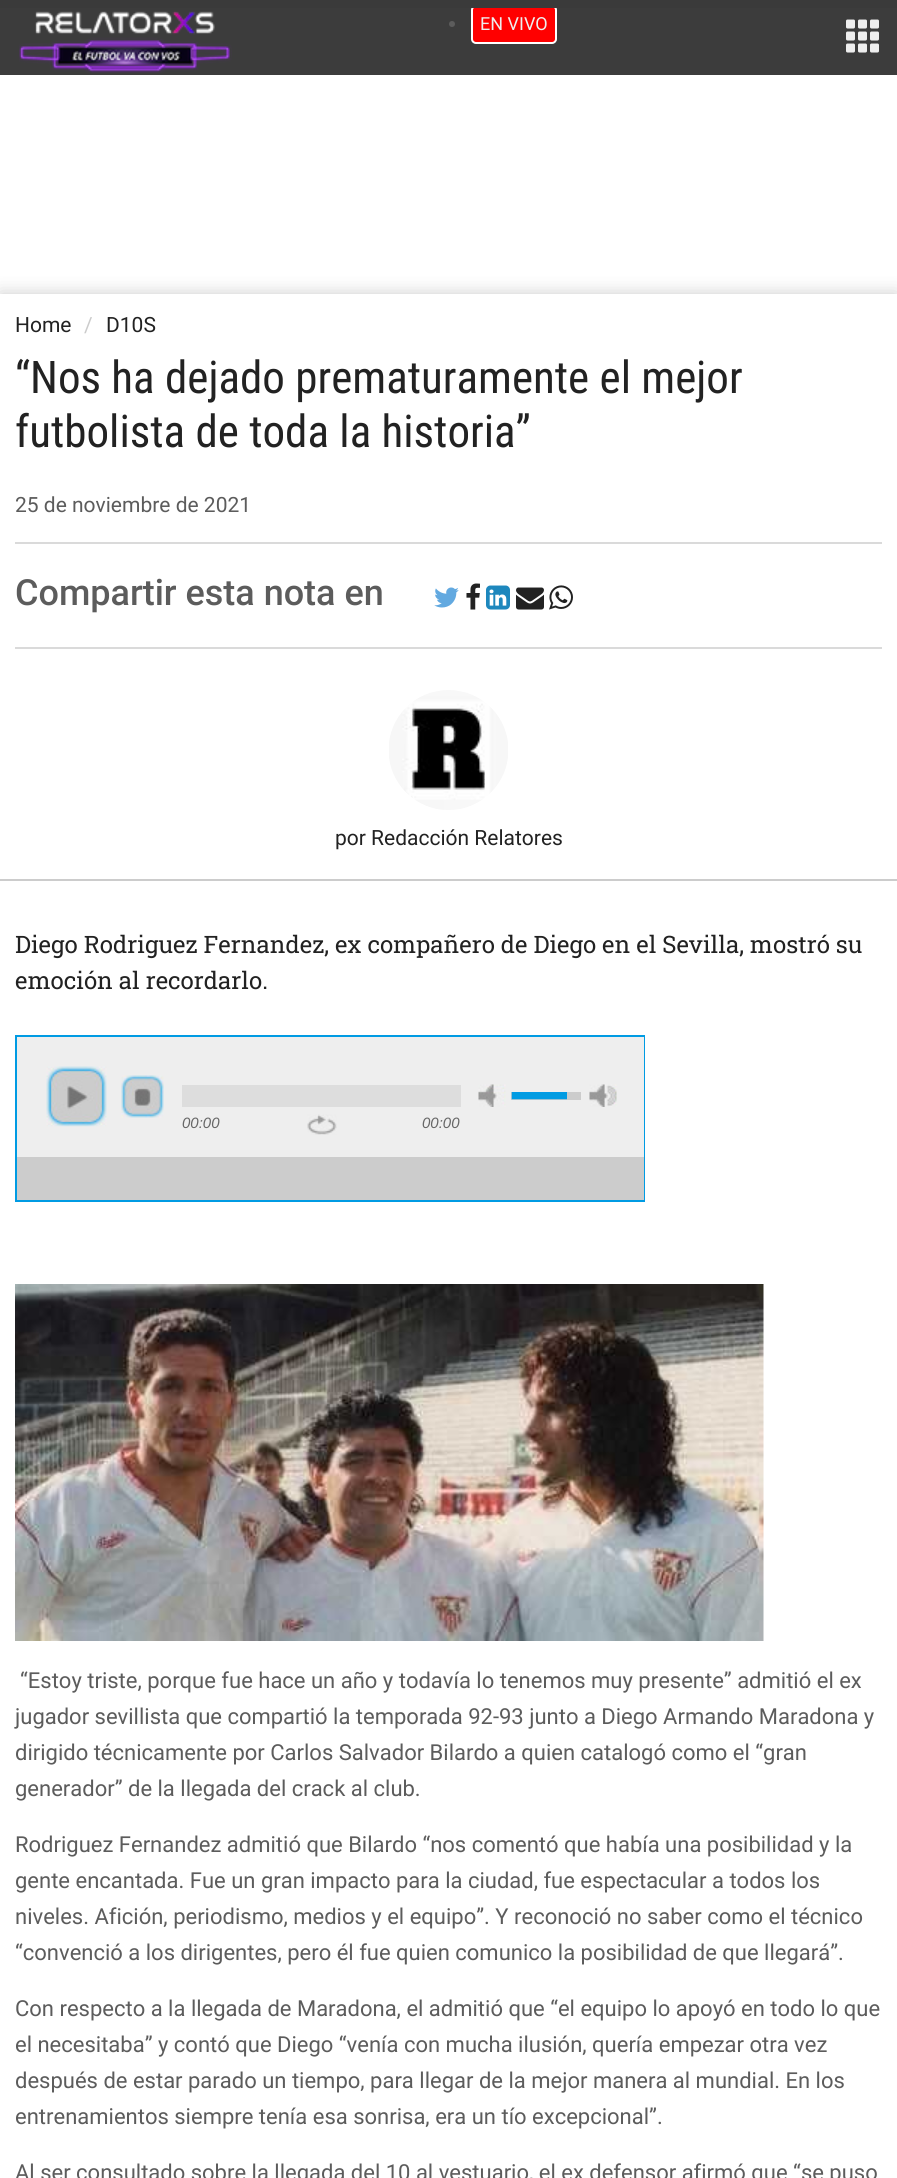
import math
import cairo

surface = cairo.ImageSurface(cairo.Format.RGB24, 897, 2178)
ctx = cairo.Context(surface)
options = cairo.FontOptions()
options.set_hint_metrics(cairo.HintMetrics.OFF)
options.set_hint_style(cairo.HintStyle.NONE)
ctx.set_font_options(options)
ctx.set_miter_limit(4)


def ink(r, g, b):
    ctx.set_source_rgb(r / 255, g / 255, b / 255)


def write(x, y, s, family, size, color, bold=False, italic=False):
    ctx.select_font_face(family, cairo.FontSlant.ITALIC if italic else cairo.FontSlant.NORMAL, cairo.FontWeight.BOLD if bold else cairo.FontWeight.NORMAL)
    ctx.set_font_size(size)
    ink(*color)
    ctx.move_to(x, y)
    ctx.show_text(s)


def block(x, y, w, h, *color):
    ink(*color)
    ctx.rectangle(x, y, w, h)
    ctx.fill()


def round_path(x, y, w, h, r):
    ctx.new_sub_path()
    for i, (u, v) in enumerate([(x + w - r, y + h - r), (x + r, y + h - r), (x + r, y + r), (x + w - r, y + r)]):
        ctx.arc(u, v, r, i * math.pi / 2, (i + 1) * math.pi / 2)
    ctx.close_path()


def blur_box(x, y, w, h, r, blur, alpha):
    ctx.push_group_with_content(cairo.Content.ALPHA)
    ctx.set_operator(cairo.Operator.SOURCE)
    for i in range(15, -16, -2):
        e = blur * i / 6
        if min(w, h) + 2 * e > 0:
            ctx.set_source_rgba(0, 0, 0, alpha * math.erfc((i - 1) / 8.5) / 2)
            round_path(x - e, y - e, w + 2 * e, h + 2 * e, max(0, min(r + e + blur * .6, min(w, h) / 2 + e)))
            ctx.fill()
    ctx.mask(ctx.pop_group())


def paste(path, x, y, w, h):
    ctx.save()
    ctx.set_source_surface(cairo.ImageSurface.create_from_png(path), x, y)
    ctx.rectangle(x, y, w, h)
    ctx.fill()
    ctx.restore()


s1 = dict(family="Roboto", size=18, color=(238, 238, 238))
s2 = dict(family="Roboto", size=21, color=(34, 34, 34))
s3 = dict(family="Roboto", size=21, color=(204, 204, 204))
s4 = dict(family="Roboto Condensed", size=45, color=(34, 34, 34))
s5 = dict(family="Roboto", size=21, color=(92, 92, 92))
s6 = dict(family="Roboto Medium", size=36, color=(92, 92, 92))
s7 = dict(family="Roboto Slab", size=24, color=(34, 34, 34))
s8 = dict(family="Liberation Sans", size=15, color=(102, 102, 102), italic=True)
s9 = dict(family="Roboto", size=22, color=(92, 92, 92))

ink(255, 255, 255)
ctx.paint()
block(0, 8, 897, 67, 60, 60, 60)
block(0, 0, 897, 8, 58, 58, 58)
paste("pic1.png", 19, 11, 213, 62)
ink(92, 92, 92)
ctx.arc(452, 24, 3, 0, 2 * math.pi)
ctx.fill()
ctx.save()
ctx.rectangle(0, 8, 897, 67)
ctx.clip()
ink(255, 0, 0)
round_path(472, 6, 84, 37, 4)
ctx.fill_preserve()
ink(255, 255, 255)
ctx.stroke()
ctx.restore()
write(480, 30, "EN VIVO", **s1)
paste("pic2.png", 846, 19, 33, 34)
ctx.save()
ctx.rectangle(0, 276, 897, 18)
ctx.clip()
ink(204, 204, 204)
blur_box(0, 294, 897, 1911, 0, 9, 1)
ctx.restore()
block(15, 542, 867, 2, 218, 218, 218)
write(15, 332, "Home", **s2)
write(84, 332, "/", **s3)
write(106, 332, "D10S", **s2)
write(15, 393, "“Nos ha dejado prematuramente el mejor", **s4)
write(15, 447, "futbolista de toda la historia”", **s4)
write(15, 512, "25 de noviembre de 2021", **s5)
block(15, 647, 867, 2, 218, 218, 218)
write(15, 605, "Compartir esta nota en", **s6)
paste("pic3.png", 434, 587, 25, 21)
paste("pic4.png", 466, 583, 14, 27)
paste("pic5.png", 486, 585, 24, 25)
paste("pic6.png", 516, 587, 28, 23)
paste("pic7.png", 549, 585, 24, 25)
block(0, 879, 897, 2, 204, 204, 204)
paste("pic8.png", 389, 690, 119, 120)
write(335, 845, "por Redacción Relatores", **s2)
write(15, 953, "Diego Rodriguez Fernandez, ex compañero de Diego en el Sevilla, mostró su", **s7)
write(15, 989, "emoción al recordarlo.", **s7)
ctx.rectangle(16, 1036, 628, 165)
ink(0, 155, 227)
ctx.stroke()
block(17, 1037, 627, 120, 238, 238, 238)
paste("pic9.png", 46, 1066, 61, 61)
paste("pic10.png", 121, 1075, 43, 43)
block(182, 1085, 279, 22, 221, 221, 221)
paste("pic11.png", 478, 1084, 28, 23)
block(511, 1092, 70, 8, 204, 204, 204)
paste("pic12.png", 511, 1092, 56, 8)
paste("pic13.png", 589, 1084, 28, 23)
write(182, 1128, "00:00", **s8)
paste("pic14.png", 307, 1114, 30, 21)
write(422, 1128, "00:00", **s8)
block(17, 1157, 627, 43, 204, 204, 204)
paste("pic15.png", 15, 1284, 749, 357)
write(20, 1688, "“Estoy triste, porque fue hace un año y todavía lo tenemos muy presente” admitió el ex", **s9)
write(15, 1724, "jugador sevillista que compartió la temporada 92-93 junto a Diego Armando Maradona y", **s9)
write(15, 1760, "dirigido técnicamente por Carlos Salvador Bilardo a quien catalogó como el “gran", **s9)
write(15, 1796, "generador” de la llegada del crack al club.", **s9)
write(15, 1852, "Rodriguez Fernandez admitió que Bilardo “nos comentó que había una posibilidad y la", **s9)
write(15, 1888, "gente encantada. Fue un gran impacto para la ciudad, fue espectacular a todos los", **s9)
write(15, 1924, "niveles. Afición, periodismo, medios y el equipo”. Y reconoció no saber como el técnico", **s9)
write(15, 1960, "“convenció a los dirigentes, pero él fue quien comunico la posibilidad de que llegará”.", **s9)
write(15, 2016, "Con respecto a la llegada de Maradona, el admitió que “el equipo lo apoyó en todo lo que", **s9)
write(15, 2052, "el necesitaba” y contó que Diego “venía con mucha ilusión, quería empezar otra vez", **s9)
write(15, 2088, "después de estar parado un tiempo, para llegar de la mejor manera al mundial. En los", **s9)
write(15, 2124, "entrenamientos siempre tenía esa sonrisa, era un tío excepcional”.", **s9)
write(15, 2180, "Al ser consultado sobre la llegada del 10 al vestuario, el ex defensor afirmó que “se puso", **s9)
surface.write_to_png("screenshot.png")
